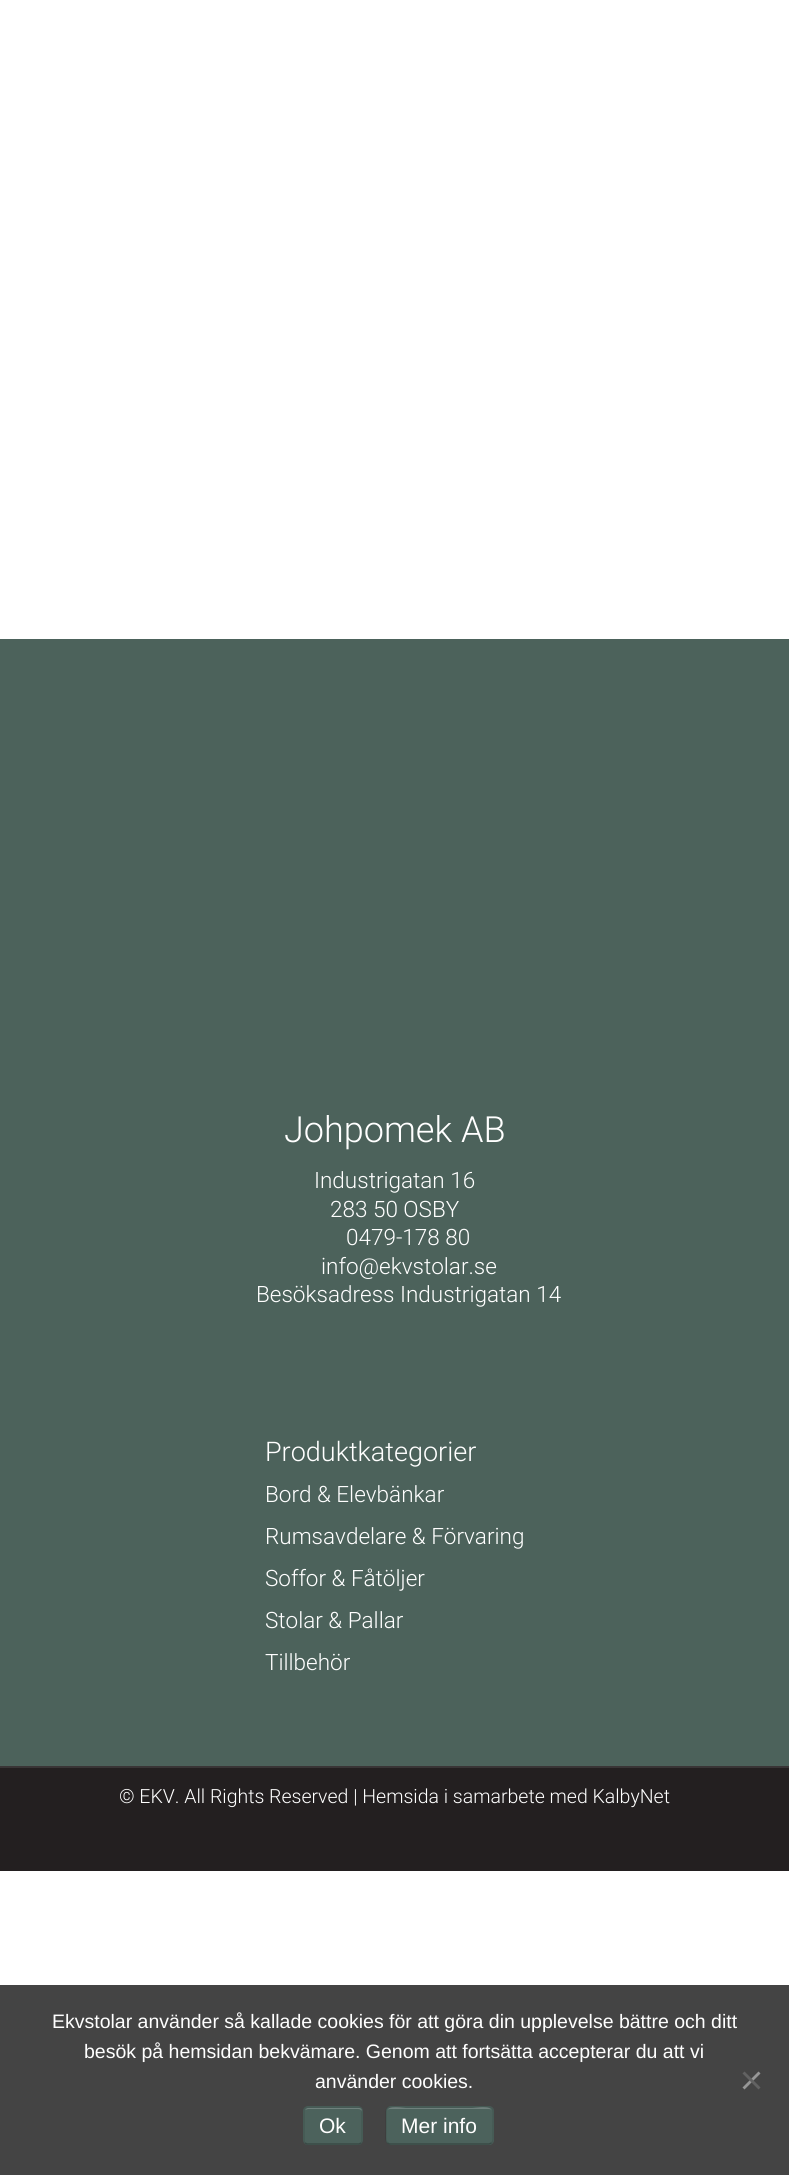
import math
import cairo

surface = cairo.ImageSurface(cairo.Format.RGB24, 789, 2175)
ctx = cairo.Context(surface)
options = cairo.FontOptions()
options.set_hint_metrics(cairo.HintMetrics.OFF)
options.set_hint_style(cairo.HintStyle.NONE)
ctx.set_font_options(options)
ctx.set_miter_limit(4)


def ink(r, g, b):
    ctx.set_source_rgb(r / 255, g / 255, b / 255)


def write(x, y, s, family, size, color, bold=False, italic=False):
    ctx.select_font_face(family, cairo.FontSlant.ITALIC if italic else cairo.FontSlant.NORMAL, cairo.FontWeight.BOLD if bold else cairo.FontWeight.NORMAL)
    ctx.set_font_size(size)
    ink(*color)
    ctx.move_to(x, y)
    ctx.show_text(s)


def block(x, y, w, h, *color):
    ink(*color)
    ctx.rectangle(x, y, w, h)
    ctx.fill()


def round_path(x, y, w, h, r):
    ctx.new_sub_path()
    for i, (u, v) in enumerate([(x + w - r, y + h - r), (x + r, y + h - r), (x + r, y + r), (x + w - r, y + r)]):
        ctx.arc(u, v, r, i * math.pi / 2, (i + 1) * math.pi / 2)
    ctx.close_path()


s1 = dict(family="Roboto Light", size=36, color=(255, 255, 255))
s2 = dict(family="Roboto Light", size=22.5, color=(255, 255, 255))
s3 = dict(family="Roboto Light", size=27, color=(255, 255, 255))
s4 = dict(family="Roboto Light", size=19.5, color=(255, 255, 255))
s5 = dict(family="Liberation Sans", size=19.5, color=(255, 255, 255))
s6 = dict(family="Liberation Sans", size=21, color=(255, 255, 255))

ink(255, 255, 255)
ctx.paint()
block(0, 639, 789, 1127, 76, 98, 91)
write(284, 1142, "Johpomek AB", **s1)
write(314, 1188, "Industrigatan 16", **s2)
write(330, 1217, "283 50 OSBY", **s2)
write(346, 1245, "0479-178 80", **s2)
write(321, 1274, "info@ekvstolar.se", **s2)
write(256, 1302, "Besöksadress Industrigatan 14", **s2)
write(265, 1461, "Produktkategorier", **s3)
write(265, 1502, "Bord & Elevbänkar", **s2)
write(265, 1544, "Rumsavdelare & Förvaring", **s2)
write(265, 1586, "Soffor & Fåtöljer", **s2)
write(265, 1628, "Stolar & Pallar", **s2)
write(265, 1670, "Tillbehör", **s2)
block(0, 1768, 789, 103, 35, 31, 32)
block(0, 1766, 789, 2, 57, 53, 54)
write(119, 1803, "© EKV. All Rights Reserved | Hemsida i samarbete med KalbyNet", **s4)
block(0, 1985, 789, 190, 68, 68, 68)
write(52, 2028, "Ekvstolar använder så kallade cookies för att göra din upplevelse bättre och ditt", **s5)
write(84, 2058, "besök på hemsidan bekvämare. Genom att fortsätta accepterar du att vi", **s5)
write(315, 2088, "använder cookies.", **s5)
ink(151, 151, 151)
ctx.new_path()
ctx.move_to(758.5, 2071.5)
ctx.line_to(760.5, 2073.5)
ctx.line_to(744.5, 2089.5)
ctx.line_to(742.5, 2087.5)
ctx.close_path()
ctx.fill()
ink(98, 98, 98)
ctx.new_path()
ctx.move_to(742.5, 2073.5)
ctx.line_to(744.5, 2071.5)
ctx.line_to(760.5, 2087.5)
ctx.line_to(758.5, 2089.5)
ctx.close_path()
ctx.fill()
ink(76, 98, 92)
round_path(303, 2106, 60, 39, 5)
ctx.fill()
ink(112, 129, 125)
ctx.new_path()
ctx.move_to(308, 2109)
ctx.line_to(358, 2109)
ctx.curve_to(360, 2109, 362, 2110, 362, 2112)
ctx.line_to(362, 2111)
ctx.curve_to(362, 2109, 361, 2108, 359, 2108)
ctx.line_to(308, 2108)
ctx.curve_to(307, 2108, 306, 2109, 305, 2110)
ctx.close_path()
ctx.fill()
ctx.new_path()
ctx.move_to(361, 2143)
ctx.line_to(359, 2144)
ctx.line_to(307, 2144)
ctx.line_to(305, 2143)
ctx.set_source_rgba(0, 0, 0, 0.25)
ctx.set_line_width(1.5)
ctx.stroke()
ctx.new_path()
ctx.move_to(305, 2143)
ctx.curve_to(304, 2142.5, 304, 2141.5, 304, 2140.5)
ctx.line_to(304, 2110.5)
ctx.curve_to(304, 2109.5, 304, 2108.5, 305, 2108)
ctx.curve_to(305.5, 2107, 306.5, 2107, 307.5, 2107)
ctx.line_to(358.5, 2107)
ctx.curve_to(359.5, 2107, 360.5, 2107, 361, 2108)
ctx.curve_to(362, 2108.5, 362, 2109.5, 362, 2110.5)
ctx.line_to(362, 2140.5)
ctx.curve_to(362, 2141.5, 362, 2142.5, 361, 2143)
ctx.set_source_rgba(0, 0, 0, 0.1)
ctx.stroke()
write(319, 2133, "Ok", **s6)
ink(76, 98, 92)
round_path(386, 2106, 108, 39, 5)
ctx.fill()
ink(112, 129, 125)
ctx.new_path()
ctx.move_to(390, 2109)
ctx.line_to(489, 2109)
ctx.curve_to(491, 2109, 492, 2110, 492, 2112)
ctx.curve_to(492, 2104, 475, 2108, 472, 2108)
ctx.line_to(406, 2108)
ctx.curve_to(404, 2108, 387, 2104, 387, 2112)
ctx.curve_to(387, 2110, 388, 2109, 390, 2109)
ctx.close_path()
ctx.fill()
ctx.new_path()
ctx.move_to(491.5, 2143)
ctx.line_to(489, 2144)
ctx.line_to(389.5, 2144)
ctx.line_to(387.5, 2143)
ctx.set_source_rgba(0, 0, 0, 0.25)
ctx.stroke()
ctx.new_path()
ctx.move_to(387.5, 2143)
ctx.curve_to(385, 2140.5, 386, 2133, 386, 2130.5)
ctx.line_to(386, 2115.5)
ctx.curve_to(386, 2112.5, 385.5, 2107, 390, 2107)
ctx.line_to(472.5, 2107)
ctx.curve_to(496.5, 2107, 493, 2103, 493, 2125.5)
ctx.line_to(493, 2135.5)
ctx.curve_to(493, 2137.5, 493.5, 2141.5, 491.5, 2143)
ctx.set_source_rgba(0, 0, 0, 0.1)
ctx.stroke()
write(401, 2133, "Mer info", **s6)
surface.write_to_png("screenshot.png")
